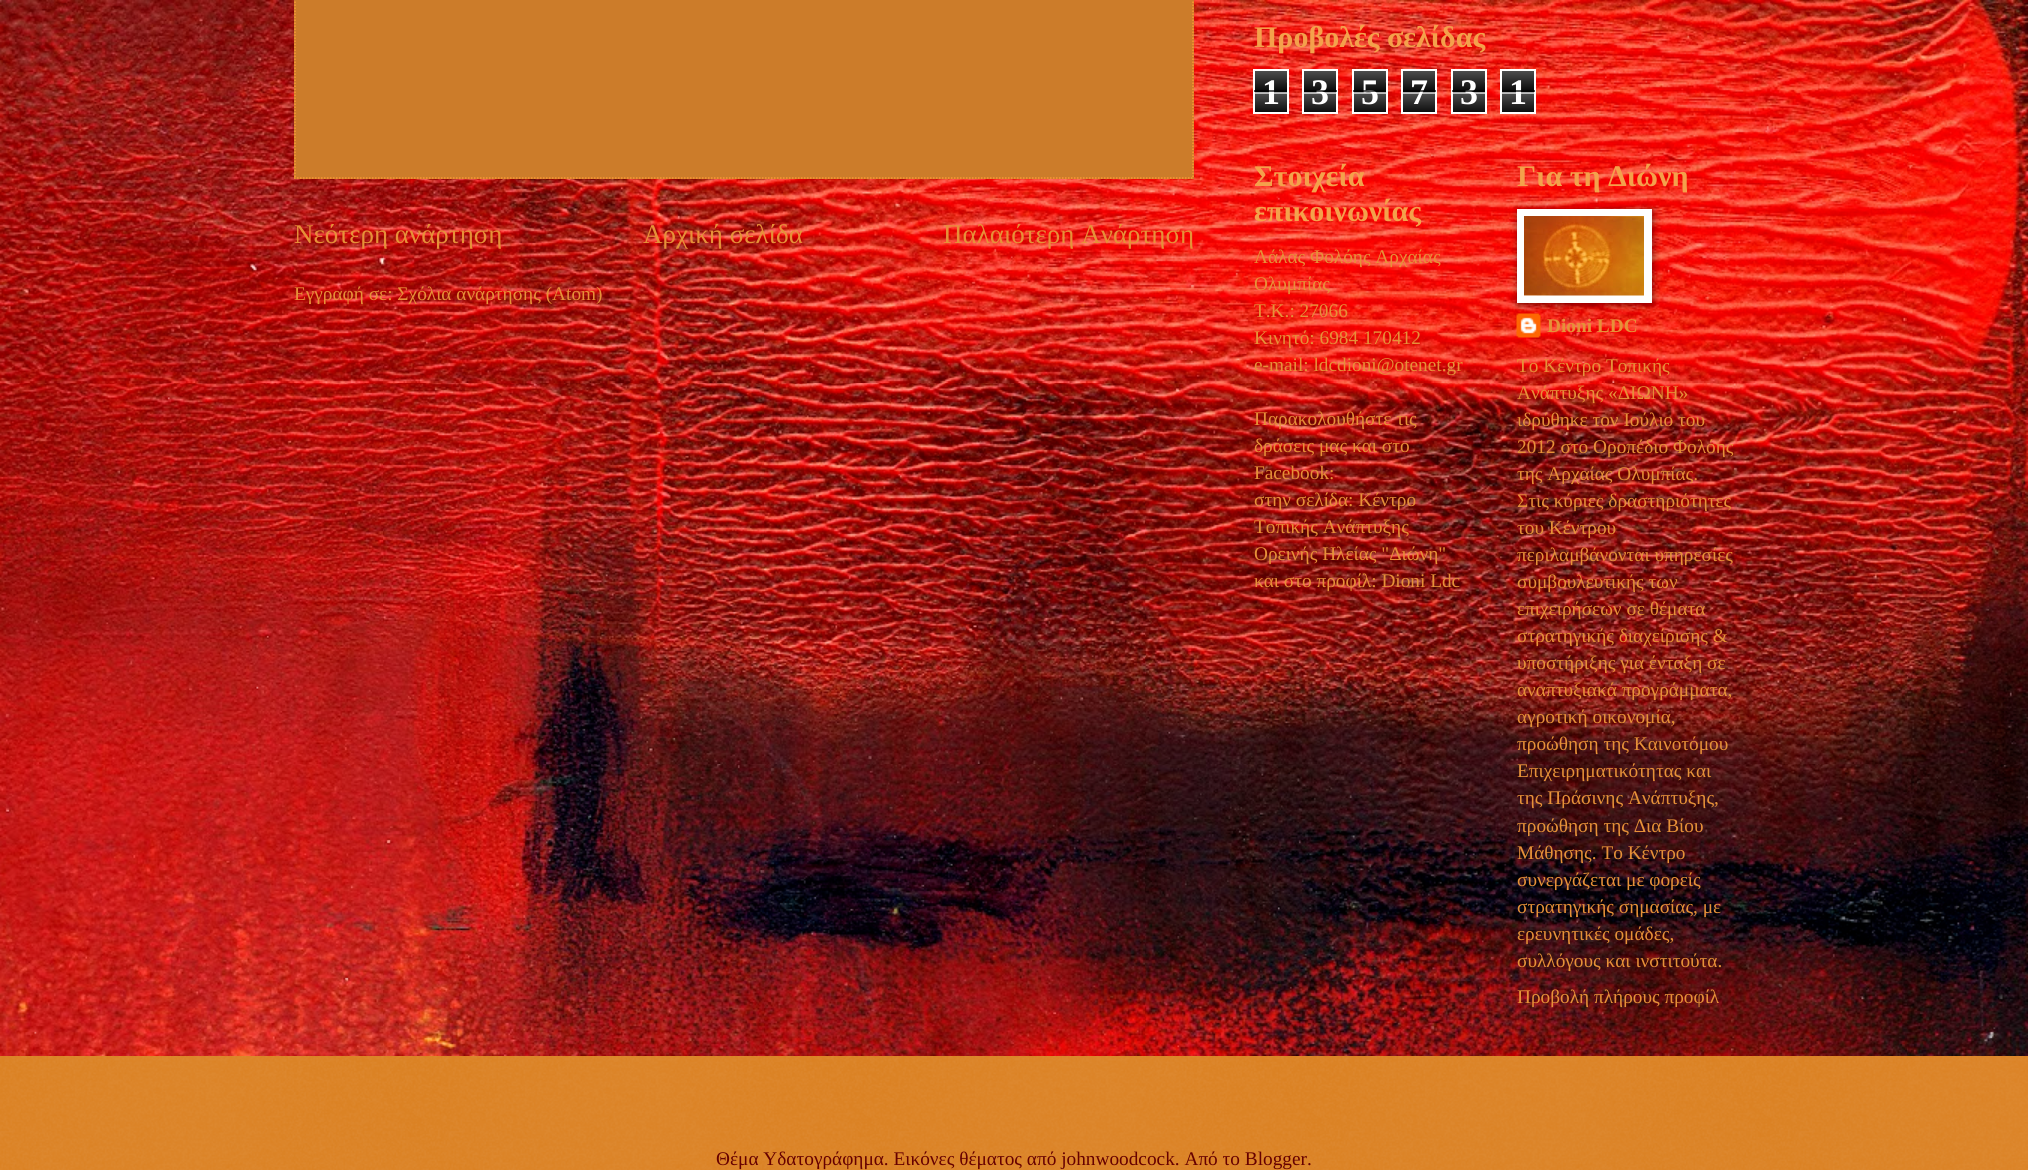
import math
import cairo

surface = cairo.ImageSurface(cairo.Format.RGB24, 2028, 1170)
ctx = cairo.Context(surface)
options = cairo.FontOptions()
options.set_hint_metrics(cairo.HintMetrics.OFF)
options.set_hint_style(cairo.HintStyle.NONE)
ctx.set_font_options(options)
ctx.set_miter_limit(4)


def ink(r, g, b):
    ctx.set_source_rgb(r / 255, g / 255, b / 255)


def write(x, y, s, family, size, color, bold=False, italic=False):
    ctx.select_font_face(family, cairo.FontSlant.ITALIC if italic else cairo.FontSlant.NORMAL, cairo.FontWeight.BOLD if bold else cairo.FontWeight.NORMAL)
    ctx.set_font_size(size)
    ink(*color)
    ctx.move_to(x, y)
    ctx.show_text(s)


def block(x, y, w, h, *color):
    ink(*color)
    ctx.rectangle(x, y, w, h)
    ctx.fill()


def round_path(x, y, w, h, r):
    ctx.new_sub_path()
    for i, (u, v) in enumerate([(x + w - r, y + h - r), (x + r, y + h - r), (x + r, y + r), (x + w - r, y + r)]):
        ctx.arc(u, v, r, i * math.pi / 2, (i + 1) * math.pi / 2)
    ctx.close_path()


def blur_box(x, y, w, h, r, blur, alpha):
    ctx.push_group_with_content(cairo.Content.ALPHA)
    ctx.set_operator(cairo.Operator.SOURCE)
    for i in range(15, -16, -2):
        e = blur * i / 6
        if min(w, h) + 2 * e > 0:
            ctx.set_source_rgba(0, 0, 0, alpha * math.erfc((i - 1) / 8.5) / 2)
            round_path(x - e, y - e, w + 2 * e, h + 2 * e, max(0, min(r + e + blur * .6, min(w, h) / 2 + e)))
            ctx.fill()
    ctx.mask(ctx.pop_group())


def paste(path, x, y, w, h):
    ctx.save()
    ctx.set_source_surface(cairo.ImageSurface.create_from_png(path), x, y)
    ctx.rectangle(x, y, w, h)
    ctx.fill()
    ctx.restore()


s1 = dict(family="Liberation Serif", size=27, color=(230, 145, 56))
s2 = dict(family="Liberation Serif", size=19.3, color=(230, 145, 56))
s3 = dict(family="Liberation Serif", size=30, color=(244, 161, 75), bold=True)
s4 = dict(family="Liberation Serif", size=36, color=(255, 255, 255), bold=True)
s5 = dict(family="Liberation Serif", size=19.3, color=(230, 145, 56), bold=True)
s6 = dict(family="Liberation Serif", size=19.3, color=(102, 0, 0))

ink(255, 255, 255)
ctx.paint()
paste("pic1.png", 0, 0, 2028, 1056)
block(294, 0, 900, 179, 204, 124, 42)
ctx.new_path()
ctx.move_to(1193, -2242.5)
ctx.line_to(1193, 178.5)
ink(250, 153, 52)
ctx.set_line_width(1.5)
ctx.set_dash([1.5, 1.5])
ctx.stroke()
ctx.new_path()
ctx.move_to(294, 178)
ctx.line_to(1194, 178)
ctx.stroke()
ctx.new_path()
ctx.move_to(295, -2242.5)
ctx.line_to(295, 178.5)
ctx.stroke()
write(294, 243, "Νεότερη ανάρτηση", **s1)
write(643, 243, "Αρχική σελίδα", **s1)
write(943, 243, "Παλαιότερη Ανάρτηση", **s1)
write(294, 300, "Εγγραφή σε: Σχόλια ανάρτησης (Atom)", **s2)
write(1254, 47, "Προβολές σελίδας", **s3)
paste("pic2.png", 1255, 71, 32, 41)
ctx.rectangle(1254, 70, 34, 43)
ink(255, 255, 255)
ctx.set_line_width(2)
ctx.set_dash([])
ctx.stroke()
write(1262, 104, "1", **s4)
ctx.set_source_rgba(0, 0, 0, 0.65)
ctx.rectangle(1254, 90, 33, 2)
ctx.fill()
ctx.set_source_rgba(1, 1, 1, 0.65)
ctx.rectangle(1254, 92, 33, 2)
ctx.fill()
paste("pic3.png", 1304, 71, 32, 41)
ctx.rectangle(1303, 70, 34, 43)
ink(255, 255, 255)
ctx.stroke()
write(1311, 104, "3", **s4)
ctx.set_source_rgba(0, 0, 0, 0.65)
ctx.rectangle(1304, 90, 33, 2)
ctx.fill()
ctx.set_source_rgba(1, 1, 1, 0.65)
ctx.rectangle(1304, 92, 33, 2)
ctx.fill()
paste("pic2.png", 1354, 71, 32, 41)
ctx.rectangle(1353, 70, 34, 43)
ink(255, 255, 255)
ctx.stroke()
write(1361, 104, "5", **s4)
ctx.set_source_rgba(0, 0, 0, 0.65)
ctx.rectangle(1353, 90, 33, 2)
ctx.fill()
ctx.set_source_rgba(1, 1, 1, 0.65)
ctx.rectangle(1353, 92, 33, 2)
ctx.fill()
paste("pic3.png", 1403, 71, 32, 41)
ctx.rectangle(1402, 70, 34, 43)
ink(255, 255, 255)
ctx.stroke()
write(1410, 104, "7", **s4)
ctx.set_source_rgba(0, 0, 0, 0.65)
ctx.rectangle(1403, 90, 33, 2)
ctx.fill()
ctx.set_source_rgba(1, 1, 1, 0.65)
ctx.rectangle(1403, 92, 33, 2)
ctx.fill()
paste("pic2.png", 1453, 71, 32, 41)
ctx.rectangle(1452, 70, 34, 43)
ink(255, 255, 255)
ctx.stroke()
write(1460, 104, "3", **s4)
ctx.set_source_rgba(0, 0, 0, 0.65)
ctx.rectangle(1452, 90, 33, 2)
ctx.fill()
ctx.set_source_rgba(1, 1, 1, 0.65)
ctx.rectangle(1452, 92, 33, 2)
ctx.fill()
paste("pic3.png", 1502, 71, 32, 41)
ctx.rectangle(1501, 70, 34, 43)
ink(255, 255, 255)
ctx.stroke()
write(1509, 104, "1", **s4)
ctx.set_source_rgba(0, 0, 0, 0.65)
ctx.rectangle(1502, 90, 33, 2)
ctx.fill()
ctx.set_source_rgba(1, 1, 1, 0.65)
ctx.rectangle(1502, 92, 33, 2)
ctx.fill()
write(1254, 186, "Στοιχεία", **s3)
write(1254, 221, "επικοινωνίας", **s3)
write(1254, 263, "Λάλας Φολόης Αρχαίας", **s2)
write(1254, 290, "Ολυμπίας", **s2)
write(1254, 317, "Τ.Κ.: 27066", **s2)
write(1254, 344, "Κινητό: 6984 170412", **s2)
write(1254, 371, "e-mail: ldcdioni@otenet.gr", **s2)
write(1254, 425, "Παρακολουθήστε τις", **s2)
write(1254, 452, "δράσεις μας και στο", **s2)
write(1254, 479, "Facebook:", **s2)
write(1254, 506, "στην σελίδα: Κέντρο", **s2)
write(1254, 533, "Τοπικής Ανάπτυξης", **s2)
write(1254, 560, "Ορεινής Ηλείας \"Διώνη\"", **s2)
write(1254, 587, "και στο προφίλ: Dioni Ldc", **s2)
write(1517, 186, "Για τη Διώνη", **s3)
paste("pic5.png", 1516, 313, 25, 25)
ink(0, 0, 0)
blur_box(1518, 210, 135, 95, 0, 4, 0.5)
block(1517, 209, 135, 94, 255, 255, 255)
paste("pic4.png", 1524, 216, 120, 80)
write(1547, 332, "Dioni LDC", **s5)
write(1517, 372, "Το Κέντρο Τοπικής", **s2)
write(1517, 399, "Ανάπτυξης «ΔΙΩΝΗ»", **s2)
write(1517, 426, "ιδρύθηκε τον Ιούλιο του", **s2)
write(1517, 453, "2012 στο Οροπέδιο Φολόης", **s2)
write(1517, 480, "της Αρχαίας Ολυμπίας.", **s2)
write(1517, 507, "Στις κύριες δραστηριότητες", **s2)
write(1517, 534, "του Κέντρου", **s2)
write(1517, 561, "περιλαμβάνονται υπηρεσίες", **s2)
write(1517, 588, "συμβουλευτικής των", **s2)
write(1517, 615, "επιχειρήσεων σε θέματα", **s2)
write(1517, 642, "στρατηγικής διαχείρισης &", **s2)
write(1517, 669, "υποστήριξης για ένταξη σε", **s2)
write(1517, 696, "αναπτυξιακά προγράμματα,", **s2)
write(1517, 723, "αγροτική οικονομία,", **s2)
write(1517, 750, "προώθηση της Καινοτόμου", **s2)
write(1517, 777, "Επιχειρηματικότητας και", **s2)
write(1517, 804, "της Πράσινης Ανάπτυξης,", **s2)
write(1517, 832, "προώθηση της Δια Βίου", **s2)
write(1517, 859, "Μάθησης. Το Κέντρο", **s2)
write(1517, 886, "συνεργάζεται με φορείς", **s2)
write(1517, 913, "στρατηγικής σημασίας, με", **s2)
write(1517, 940, "ερευνητικές ομάδες,", **s2)
write(1517, 967, "συλλόγους και ινστιτούτα.", **s2)
write(1517, 1003, "Προβολή πλήρους προφίλ", **s2)
block(0, 1056, 2028, 114, 214, 112, 5)
paste("pic6.png", 0, 1056, 2028, 114)
write(716, 1165, "Θέμα Υδατογράφημα. Εικόνες θέματος από johnwoodcock. Από το Blogger.", **s6)
surface.write_to_png("screenshot.png")
